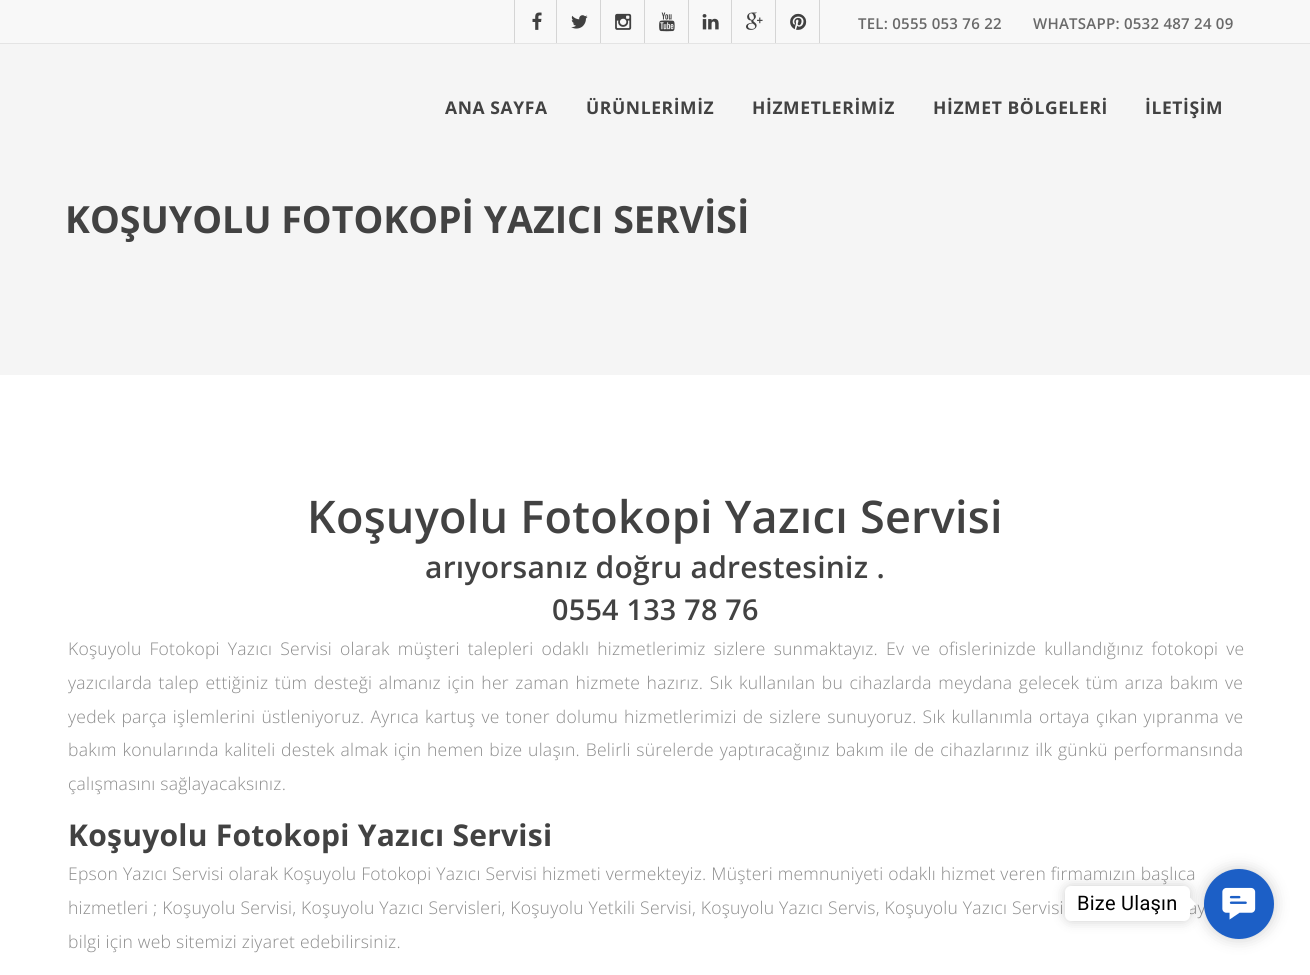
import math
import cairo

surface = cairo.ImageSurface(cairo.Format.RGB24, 1310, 975)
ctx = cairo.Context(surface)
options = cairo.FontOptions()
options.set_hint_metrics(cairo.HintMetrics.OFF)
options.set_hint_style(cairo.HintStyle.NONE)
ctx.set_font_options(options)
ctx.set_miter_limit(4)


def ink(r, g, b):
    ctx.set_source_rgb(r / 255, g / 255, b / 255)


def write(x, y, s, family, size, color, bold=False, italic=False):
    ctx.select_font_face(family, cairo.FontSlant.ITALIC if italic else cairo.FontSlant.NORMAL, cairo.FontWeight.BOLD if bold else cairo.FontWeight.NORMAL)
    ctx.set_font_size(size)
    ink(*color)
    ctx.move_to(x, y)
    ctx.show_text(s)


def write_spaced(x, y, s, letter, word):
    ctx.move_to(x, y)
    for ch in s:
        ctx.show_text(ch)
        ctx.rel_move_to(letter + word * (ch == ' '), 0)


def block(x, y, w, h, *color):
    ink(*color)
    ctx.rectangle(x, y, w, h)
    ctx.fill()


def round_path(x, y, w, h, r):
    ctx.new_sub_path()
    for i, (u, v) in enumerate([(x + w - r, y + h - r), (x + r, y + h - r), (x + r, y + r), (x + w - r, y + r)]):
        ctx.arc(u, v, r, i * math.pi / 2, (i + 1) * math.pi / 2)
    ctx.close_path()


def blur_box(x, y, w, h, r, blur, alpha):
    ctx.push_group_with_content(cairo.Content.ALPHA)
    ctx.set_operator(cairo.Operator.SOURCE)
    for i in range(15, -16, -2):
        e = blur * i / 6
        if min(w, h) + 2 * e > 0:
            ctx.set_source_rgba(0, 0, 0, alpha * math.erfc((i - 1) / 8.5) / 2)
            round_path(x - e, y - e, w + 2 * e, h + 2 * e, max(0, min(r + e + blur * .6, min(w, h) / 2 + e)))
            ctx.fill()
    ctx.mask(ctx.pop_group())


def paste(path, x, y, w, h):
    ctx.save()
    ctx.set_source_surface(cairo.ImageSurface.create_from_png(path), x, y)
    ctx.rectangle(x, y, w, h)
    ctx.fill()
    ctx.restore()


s1 = dict(family="Open Sans", size=37.5, color=(66, 66, 66), bold=True)

ink(255, 255, 255)
ctx.paint()
block(0, 0, 1310, 43, 248, 248, 248)
block(0, 43, 1310, 1, 228, 228, 228)
block(556, 0, 1, 43, 213, 213, 213)
block(514, 0, 1, 43, 213, 213, 213)
paste("pic1.png", 532, 12, 10, 18)
block(600, 0, 1, 43, 213, 213, 213)
paste("pic2.png", 571, 15, 17, 14)
block(644, 0, 1, 43, 213, 213, 213)
paste("pic3.png", 615, 13, 17, 17)
block(688, 0, 1, 43, 213, 213, 213)
paste("pic4.png", 659, 12, 16, 20)
block(731, 0, 1, 43, 213, 213, 213)
paste("pic5.png", 702, 14, 17, 16)
block(775, 0, 1, 43, 213, 213, 213)
paste("pic6.png", 746, 12, 17, 18)
block(819, 0, 1, 43, 213, 213, 213)
paste("pic7.png", 790, 13, 17, 17)
ctx.select_font_face("Open Sans SemiBold")
ctx.set_font_size(15)
ink(105, 105, 105)
write_spaced(858, 29, "TEL: 0555 053 76 22", 0.25, 0)
write_spaced(1033, 29, "WHATSAPP: 0532 487 24 09", 0.25, 0)
block(0, 44, 1310, 331, 245, 245, 245)
ctx.select_font_face("Open Sans", cairo.FontSlant.NORMAL, cairo.FontWeight.BOLD)
ctx.set_font_size(17.5)
ink(66, 66, 66)
write_spaced(445, 114, "ANA SAYFA", 0.6, 0)
write_spaced(586, 114, "ÜRÜNLERİMİZ", 0.6, 0)
write_spaced(752, 114, "HİZMETLERİMİZ", 0.6, 0)
write_spaced(933, 114, "HİZMET BÖLGELERİ", 0.6, 0)
write_spaced(1145, 114, "İLETİŞİM", 0.6, 0)
write(65, 233, "KOŞUYOLU FOTOKOPİ YAZICI SERVİSİ", **s1)
ctx.select_font_face("Open Sans SemiBold")
ctx.set_font_size(45)
write_spaced(307, 533, "Koşuyolu Fotokopi Yazıcı Servisi", 0.25, 0)
ctx.set_font_size(30)
write_spaced(425, 578, "arıyorsanız doğru adrestesiniz .", 0.25, 0)
ctx.set_font_size(28.75)
write_spaced(552, 620, "0554 133 78 76", 0.25, 0)
ctx.select_font_face("Open Sans Light")
ctx.set_font_size(17.5)
ink(140, 140, 140)
write_spaced(68, 655, "Koşuyolu Fotokopi Yazıcı Servisi olarak müşteri talepleri odaklı hizmetlerimiz sizlere sunmaktayız. Ev ve ofislerinizde kullandığınız fotokopi ve", 0.25, 3.25)
write_spaced(68, 689, "yazıcılarda talep ettiğiniz tüm desteği almanız için her zaman hizmete hazırız. Sık kullanılan bu cihazlarda meydana gelecek tüm arıza bakım ve", 0.25, 1.7)
write_spaced(68, 723, "yedek parça işlemlerini üstleniyoruz. Ayrıca kartuş ve toner dolumu hizmetlerimizi de sizlere sunuyoruz. Sık kullanımla ortaya çıkan yıpranma ve", 0.25, 1.25)
write_spaced(68, 756, "bakım konularında kaliteli destek almak için hemen bize ulaşın. Belirli sürelerde yaptıracağınız bakım ile de cihazlarınız ilk günkü performansında", 0.25, 0.9)
write_spaced(68, 790, "çalışmasını sağlayacaksınız.", 0.25, 0)
ctx.select_font_face("Open Sans", cairo.FontSlant.NORMAL, cairo.FontWeight.BOLD)
ctx.set_font_size(30)
ink(66, 66, 66)
write_spaced(68, 846, "Koşuyolu Fotokopi Yazıcı Servisi", 0.25, 0)
ctx.select_font_face("Open Sans Light")
ctx.set_font_size(17.5)
ink(140, 140, 140)
write_spaced(68, 880, "Epson Yazıcı Servisi olarak Koşuyolu Fotokopi Yazıcı Servisi hizmeti vermekteyiz. Müşteri memnuniyeti odaklı hizmet veren firmamızın başlıca", 0.25, 0)
write_spaced(68, 914, "hizmetleri ; Koşuyolu Servisi, Koşuyolu Yazıcı Servisleri, Koşuyolu Yetkili Servisi, Koşuyolu Yazıcı Servis, Koşuyolu Yazıcı Servisi", 0.25, 0)
write_spaced(1188, 914, "ay", 0.25, 0)
write_spaced(68, 948, "bilgi için web sitemizi ziyaret edebilirsiniz.", 0.25, 0)
ink(0, 0, 0)
blur_box(1204, 869, 70, 70, 35, 7.5, 0.2)
ink(28, 95, 198)
ctx.arc(1239, 904, 35, 0, 2 * math.pi)
ctx.fill()
ink(0, 0, 0)
blur_box(1065, 886, 125, 35, 6, 6, 0.2)
ink(255, 255, 255)
round_path(1065, 886, 125, 35, 6)
ctx.fill()
ctx.select_font_face("Roboto")
ctx.set_font_size(20)
ink(0, 0, 0)
write_spaced(1077, 910, "Bize Ulaşın", 0.25, 0)
paste("pic8.png", 1222, 887, 34, 33)
ink(255, 255, 255)
ctx.new_path()
ctx.move_to(1190, 910)
ctx.line_to(1190, 897.5)
ctx.line_to(1196, 904)
ctx.close_path()
ctx.fill()
surface.write_to_png("screenshot.png")
